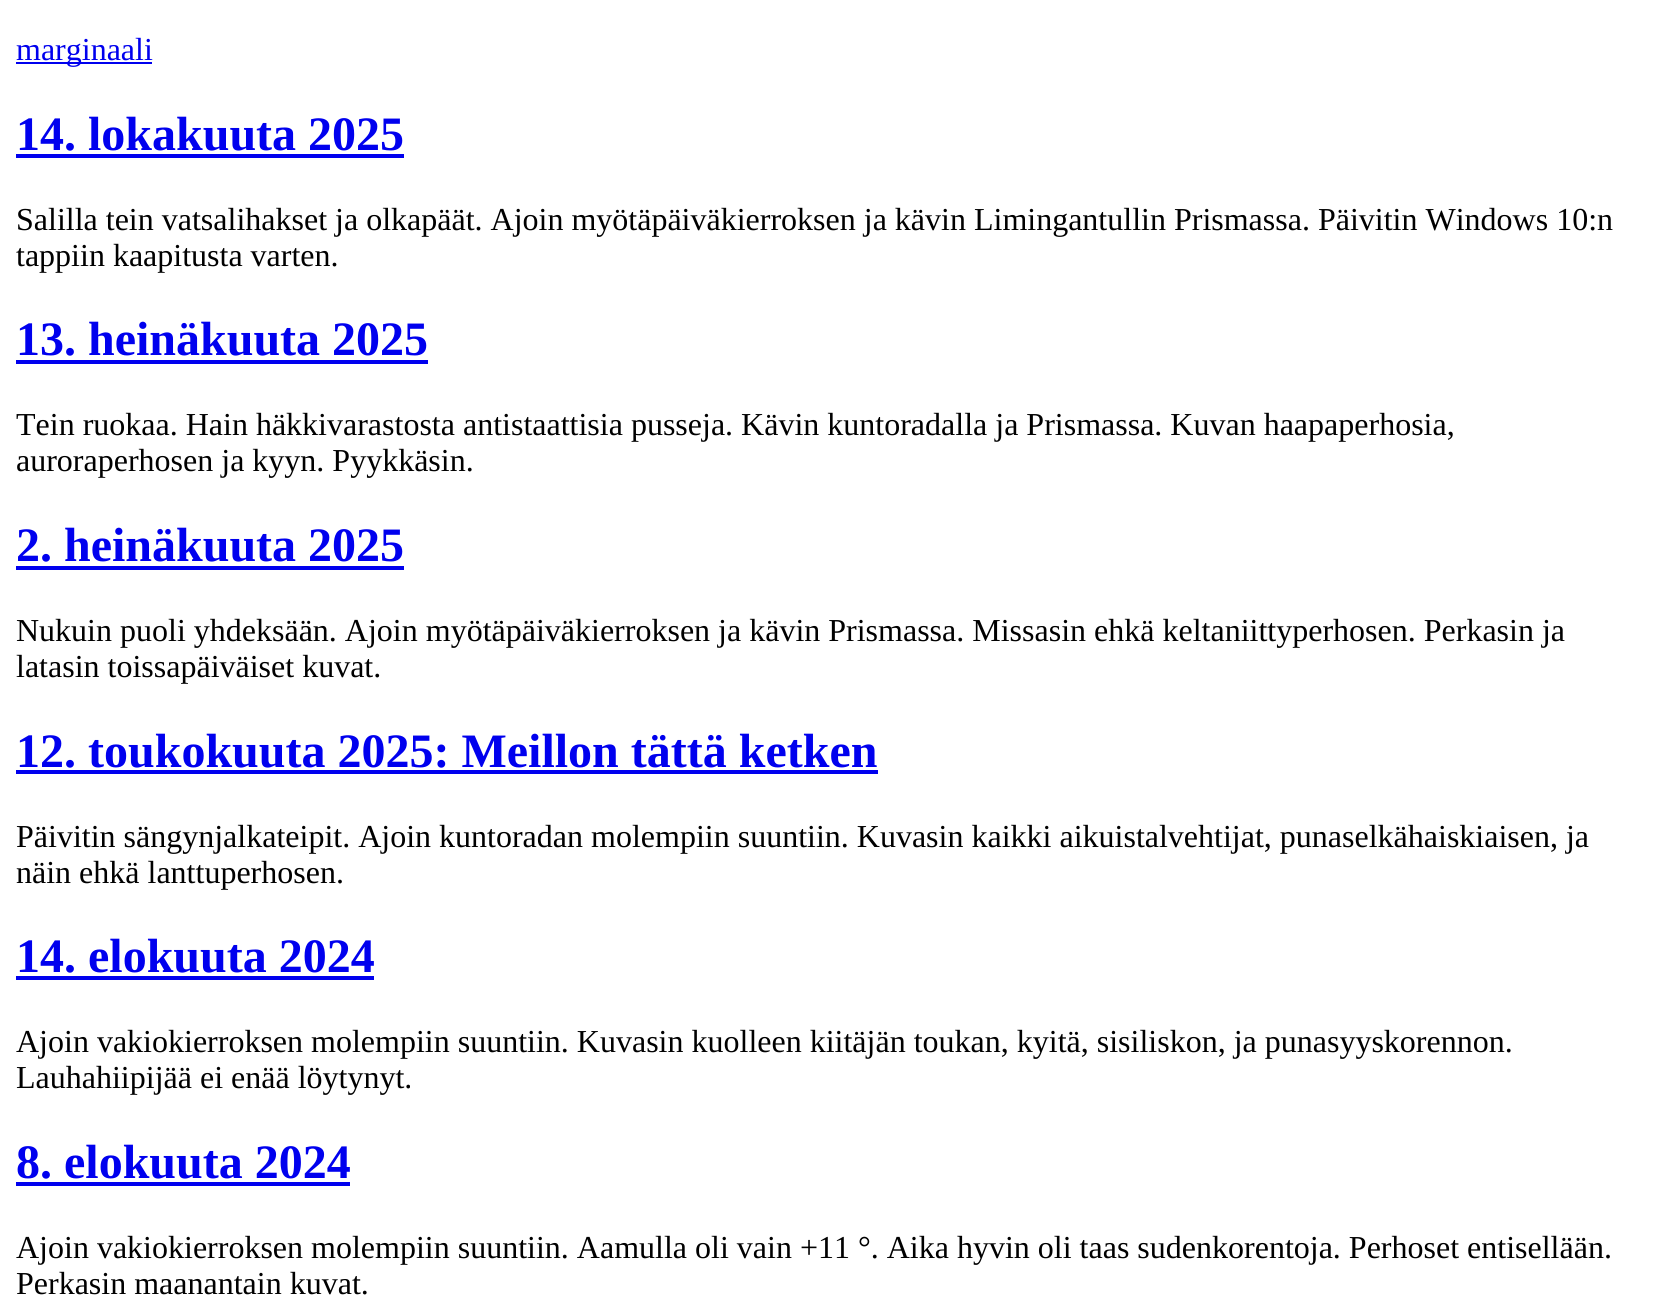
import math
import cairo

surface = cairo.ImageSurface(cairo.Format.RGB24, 1663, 1310)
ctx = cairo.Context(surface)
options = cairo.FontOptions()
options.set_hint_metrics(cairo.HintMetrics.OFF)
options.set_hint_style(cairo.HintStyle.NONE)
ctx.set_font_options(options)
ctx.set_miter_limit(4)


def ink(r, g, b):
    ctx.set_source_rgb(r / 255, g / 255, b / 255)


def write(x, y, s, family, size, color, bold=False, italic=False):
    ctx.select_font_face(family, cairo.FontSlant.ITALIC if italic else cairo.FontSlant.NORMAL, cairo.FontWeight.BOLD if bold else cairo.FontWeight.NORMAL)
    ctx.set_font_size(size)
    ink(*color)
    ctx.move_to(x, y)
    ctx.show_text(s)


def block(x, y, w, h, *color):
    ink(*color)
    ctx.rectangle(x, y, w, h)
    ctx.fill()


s1 = dict(family="Liberation Serif", size=32, color=(0, 0, 238))
s2 = dict(family="Liberation Serif", size=48, color=(0, 0, 238), bold=True)
s3 = dict(family="Liberation Serif", size=32, color=(0, 0, 0))

ink(255, 255, 255)
ctx.paint()
block(16, 62, 136, 2, 0, 0, 238)
write(16, 60, "marginaali", **s1)
write(16, 150, "14. lokakuuta 2025", **s2)
block(16, 154, 388, 4, 0, 0, 238)
write(16, 230, "Salilla tein vatsalihakset ja olkapäät. Ajoin myötäpäiväkierroksen ja kävin Limingantullin Prismassa. Päivitin Windows 10:n", **s3)
write(16, 266, "tappiin kaapitusta varten.", **s3)
write(16, 355, "13. heinäkuuta 2025", **s2)
block(16, 360, 412, 4, 0, 0, 238)
write(16, 435, "Tein ruokaa. Hain häkkivarastosta antistaattisia pusseja. Kävin kuntoradalla ja Prismassa. Kuvan haapaperhosia,", **s3)
write(16, 471, "auroraperhosen ja kyyn. Pyykkäsin.", **s3)
write(16, 561, "2. heinäkuuta 2025", **s2)
block(16, 566, 388, 4, 0, 0, 238)
write(16, 641, "Nukuin puoli yhdeksään. Ajoin myötäpäiväkierroksen ja kävin Prismassa. Missasin ehkä keltaniittyperhosen. Perkasin ja", **s3)
write(16, 677, "latasin toissapäiväiset kuvat.", **s3)
write(16, 767, "12. toukokuuta 2025: Meillon tättä ketken", **s2)
block(16, 770, 862, 4, 0, 0, 238)
write(16, 847, "Päivitin sängynjalkateipit. Ajoin kuntoradan molempiin suuntiin. Kuvasin kaikki aikuistalvehtijat, punaselkähaiskiaisen, ja", **s3)
write(16, 883, "näin ehkä lanttuperhosen.", **s3)
write(16, 972, "14. elokuuta 2024", **s2)
block(16, 976, 358, 4, 0, 0, 238)
write(16, 1052, "Ajoin vakiokierroksen molempiin suuntiin. Kuvasin kuolleen kiitäjän toukan, kyitä, sisiliskon, ja punasyyskorennon.", **s3)
write(16, 1088, "Lauhahiipijää ei enää löytynyt.", **s3)
write(16, 1178, "8. elokuuta 2024", **s2)
block(16, 1182, 334, 4, 0, 0, 238)
write(16, 1258, "Ajoin vakiokierroksen molempiin suuntiin. Aamulla oli vain +11 °. Aika hyvin oli taas sudenkorentoja. Perhoset entisellään.", **s3)
write(16, 1294, "Perkasin maanantain kuvat.", **s3)
surface.write_to_png("screenshot.png")
